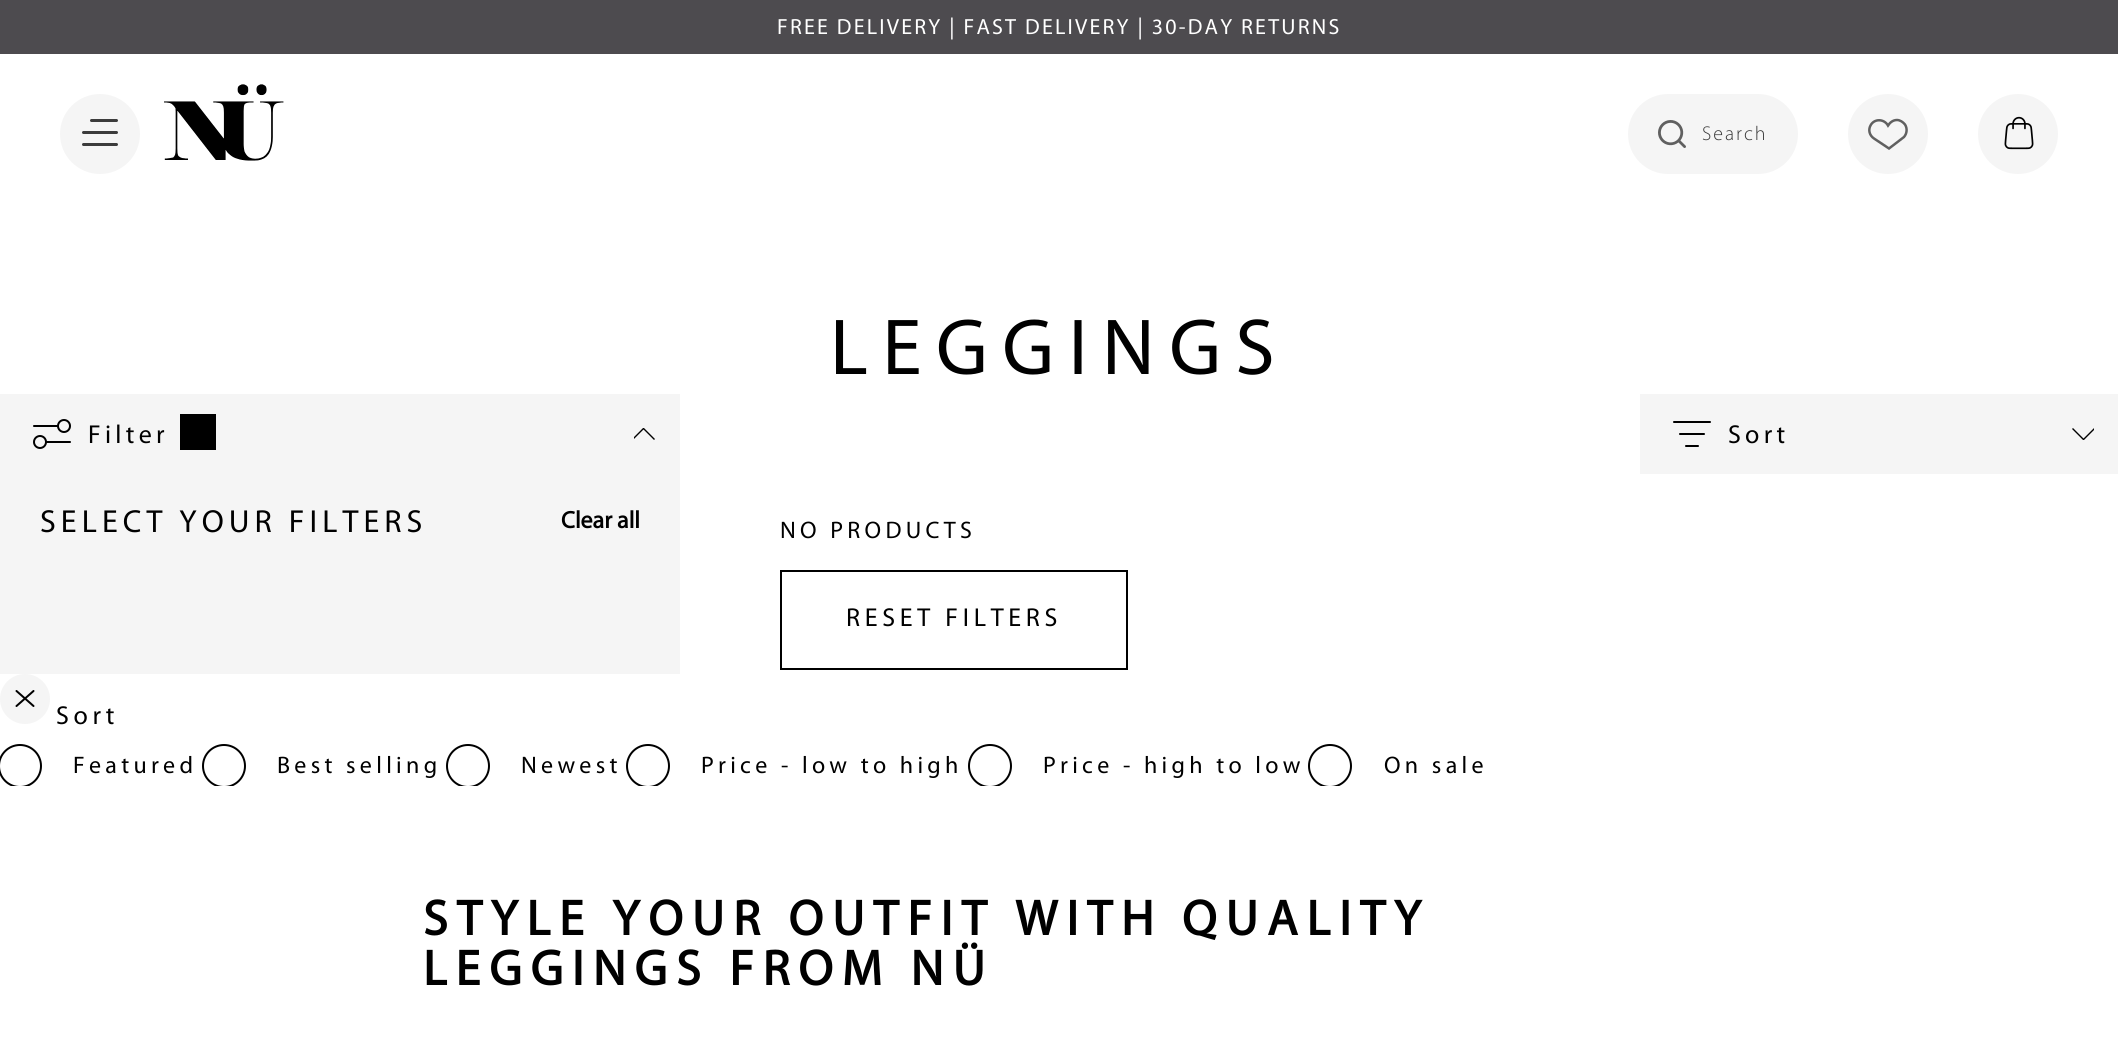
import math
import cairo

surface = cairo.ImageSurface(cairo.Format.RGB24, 2118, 1052)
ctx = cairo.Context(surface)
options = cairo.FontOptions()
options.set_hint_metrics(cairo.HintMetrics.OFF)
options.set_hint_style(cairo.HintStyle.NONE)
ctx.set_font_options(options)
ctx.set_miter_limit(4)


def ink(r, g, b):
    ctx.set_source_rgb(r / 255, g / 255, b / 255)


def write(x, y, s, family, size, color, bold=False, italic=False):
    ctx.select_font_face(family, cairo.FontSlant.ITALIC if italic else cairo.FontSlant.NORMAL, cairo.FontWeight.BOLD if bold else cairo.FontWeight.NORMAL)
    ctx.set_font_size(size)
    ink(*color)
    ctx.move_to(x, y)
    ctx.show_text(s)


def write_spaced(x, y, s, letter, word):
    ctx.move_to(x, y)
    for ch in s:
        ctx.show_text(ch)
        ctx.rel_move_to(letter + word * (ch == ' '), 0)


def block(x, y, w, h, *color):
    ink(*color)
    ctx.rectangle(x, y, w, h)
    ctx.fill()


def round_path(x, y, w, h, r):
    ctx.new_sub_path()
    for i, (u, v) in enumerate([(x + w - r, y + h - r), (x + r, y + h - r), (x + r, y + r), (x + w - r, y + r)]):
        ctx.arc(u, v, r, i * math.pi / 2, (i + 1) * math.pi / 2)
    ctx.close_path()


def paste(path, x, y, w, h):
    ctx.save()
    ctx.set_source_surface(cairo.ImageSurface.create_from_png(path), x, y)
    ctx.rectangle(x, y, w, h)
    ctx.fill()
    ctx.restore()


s1 = dict(family="Myriad", size=24, color=(0, 0, 0), bold=True)

ink(255, 255, 255)
ctx.paint()
block(0, 0, 2118, 54, 77, 75, 79)
ctx.select_font_face("Myriad")
ctx.set_font_size(22)
ink(255, 255, 255)
write_spaced(777, 34, "FREE DELIVERY | FAST DELIVERY | 30-DAY RETURNS", 2.2, 0)
ink(245, 245, 245)
ctx.new_path()
ctx.arc(100, 134, 40, 0, 2 * math.pi)
ctx.fill()
ctx.new_path()
ctx.move_to(91.5, 120.5)
ctx.line_to(116.5, 120.5)
ctx.move_to(83.5, 132.5)
ctx.line_to(116.5, 132.5)
ctx.move_to(83.5, 144.5)
ctx.line_to(116.5, 144.5)
ink(60, 60, 60)
ctx.set_line_width(3)
ctx.set_line_cap(cairo.LineCap.ROUND)
ctx.stroke()
paste("pic1.png", 164, 84, 120, 77)
ink(245, 245, 245)
round_path(1628, 94, 170, 80, 40)
ctx.fill()
paste("pic2.png", 1658, 120, 28, 28)
ctx.select_font_face("Myriad Light")
ctx.set_font_size(20)
ink(60, 60, 60)
write_spaced(1702, 140, "Search", 2, 0)
ink(245, 245, 245)
ctx.new_path()
ctx.arc(1888, 134, 40, 0, 2 * math.pi)
ctx.fill()
ctx.new_path()
ctx.move_to(1897, 120)
ctx.curve_to(1900, 120, 1903, 122, 1905, 124.5)
ctx.curve_to(1907.5, 128.5, 1907, 133.5, 1904, 137)
ctx.line_to(1889, 148.5)
ctx.line_to(1874, 138.5)
ctx.curve_to(1869.5, 135.5, 1868, 130, 1870.5, 125.5)
ctx.curve_to(1874, 118.5, 1884, 118.5, 1888, 125.5)
ctx.curve_to(1890, 122.5, 1893, 120, 1897, 120)
ctx.close_path()
ink(96, 96, 96)
ctx.set_line_width(2.5)
ctx.set_line_cap(cairo.LineCap.BUTT)
ctx.stroke()
ink(245, 245, 245)
ctx.arc(2018, 134, 40, 0, 2 * math.pi)
ctx.fill()
paste("pic3.png", 2004, 116, 30, 34)
ctx.select_font_face("Myriad")
ctx.set_font_size(80)
ink(0, 0, 0)
write_spaced(830, 374, "LEGGINGS", 14.5, 0)
block(0, 394, 680, 280, 245, 245, 245)
paste("pic4.png", 33, 419, 38, 30)
ctx.set_font_size(26)
ink(0, 0, 0)
write_spaced(88, 443, "Filter", 4.3, 0)
block(180, 414, 36, 36, 0, 0, 0)
ctx.save()
ctx.rectangle(634, 428, 22, 12)
ctx.clip()
ctx.new_path()
ctx.move_to(654.5, 439.5)
ctx.line_to(643.5, 428.5)
ctx.line_to(632.5, 439.5)
ctx.set_line_width(1.4)
ctx.stroke()
ctx.restore()
block(1640, 394, 478, 80, 245, 245, 245)
ctx.new_path()
ctx.move_to(1680, 434)
ctx.line_to(1704, 434)
ctx.move_to(1674, 422)
ctx.line_to(1710, 422)
ctx.move_to(1686, 446)
ctx.line_to(1698, 446)
ink(0, 0, 0)
ctx.set_line_width(2)
ctx.set_line_cap(cairo.LineCap.ROUND)
ctx.set_line_join(cairo.LineJoin.ROUND)
ctx.stroke()
write_spaced(1728, 443, "Sort", 4.3, 0)
ctx.save()
ctx.rectangle(2072, 428, 22, 12)
ctx.clip()
ctx.new_path()
ctx.move_to(2072.5, 428.5)
ctx.line_to(2083.5, 439.5)
ctx.line_to(2094.5, 428.5)
ctx.set_line_width(1.4)
ctx.set_line_cap(cairo.LineCap.BUTT)
ctx.set_line_join(cairo.LineJoin.MITER)
ctx.stroke()
ctx.restore()
ctx.set_font_size(32)
write_spaced(40, 532, "SELECT YOUR FILTERS", 5.1, 0)
write(561, 528, "Clear all", **s1)
ctx.select_font_face("Myriad")
write_spaced(780, 538, "NO PRODUCTS", 4.3, 0)
ctx.rectangle(781, 571, 346, 98)
ctx.set_line_cap(cairo.LineCap.BUTT)
ctx.set_line_join(cairo.LineJoin.MITER)
ctx.stroke()
ctx.set_font_size(26)
write_spaced(846, 626, "RESET FILTERS", 4.75, 0)
ink(245, 245, 245)
ctx.new_path()
ctx.arc(25, 699, 25, 0, 2 * math.pi)
ctx.fill()
ctx.new_path()
ctx.move_to(33.5, 691)
ctx.line_to(16.5, 706)
ctx.move_to(16.5, 691)
ctx.line_to(33.5, 706)
ink(0, 0, 0)
ctx.set_line_cap(cairo.LineCap.ROUND)
ctx.set_line_join(cairo.LineJoin.ROUND)
ctx.stroke()
write_spaced(56, 724, "Sort", 4.75, 0)
ctx.save()
ctx.rectangle(0, 740, 2118, 46)
ctx.clip()
ctx.arc(20, 766, 21, 0, 2 * math.pi)
ctx.set_line_cap(cairo.LineCap.BUTT)
ctx.set_line_join(cairo.LineJoin.MITER)
ctx.stroke()
ctx.restore()
ctx.set_font_size(24)
write_spaced(73, 773, "Featured", 4.3, 0)
ctx.save()
ctx.rectangle(0, 740, 2118, 46)
ctx.clip()
ctx.arc(224, 766, 21, 0, 2 * math.pi)
ctx.set_line_cap(cairo.LineCap.BUTT)
ctx.set_line_join(cairo.LineJoin.MITER)
ctx.stroke()
ctx.restore()
write_spaced(277, 773, "Best selling", 4.3, 0)
ctx.save()
ctx.rectangle(0, 740, 2118, 46)
ctx.clip()
ctx.arc(468, 766, 21, 0, 2 * math.pi)
ctx.set_line_cap(cairo.LineCap.BUTT)
ctx.set_line_join(cairo.LineJoin.MITER)
ctx.stroke()
ctx.restore()
write_spaced(521, 773, "Newest", 4.3, 0)
ctx.save()
ctx.rectangle(0, 740, 2118, 46)
ctx.clip()
ctx.arc(648, 766, 21, 0, 2 * math.pi)
ctx.set_line_cap(cairo.LineCap.BUTT)
ctx.set_line_join(cairo.LineJoin.MITER)
ctx.stroke()
ctx.restore()
write_spaced(701, 773, "Price - low to high", 4.3, 0)
ctx.save()
ctx.rectangle(0, 740, 2118, 46)
ctx.clip()
ctx.arc(990, 766, 21, 0, 2 * math.pi)
ctx.set_line_cap(cairo.LineCap.BUTT)
ctx.set_line_join(cairo.LineJoin.MITER)
ctx.stroke()
ctx.restore()
write_spaced(1043, 773, "Price - high to low", 4.3, 0)
ctx.save()
ctx.rectangle(0, 740, 2118, 46)
ctx.clip()
ctx.arc(1330, 766, 21, 0, 2 * math.pi)
ctx.set_line_cap(cairo.LineCap.BUTT)
ctx.set_line_join(cairo.LineJoin.MITER)
ctx.stroke()
ctx.restore()
write_spaced(1384, 773, "On sale", 4.3, 0)
ctx.select_font_face("Myriad", cairo.FontSlant.NORMAL, cairo.FontWeight.BOLD)
ctx.set_font_size(50)
write_spaced(423, 935, "STYLE YOUR OUTFIT WITH QUALITY", 9, 0)
write_spaced(423, 985, "LEGGINGS FROM NÜ", 9, 0)
surface.write_to_png("screenshot.png")
